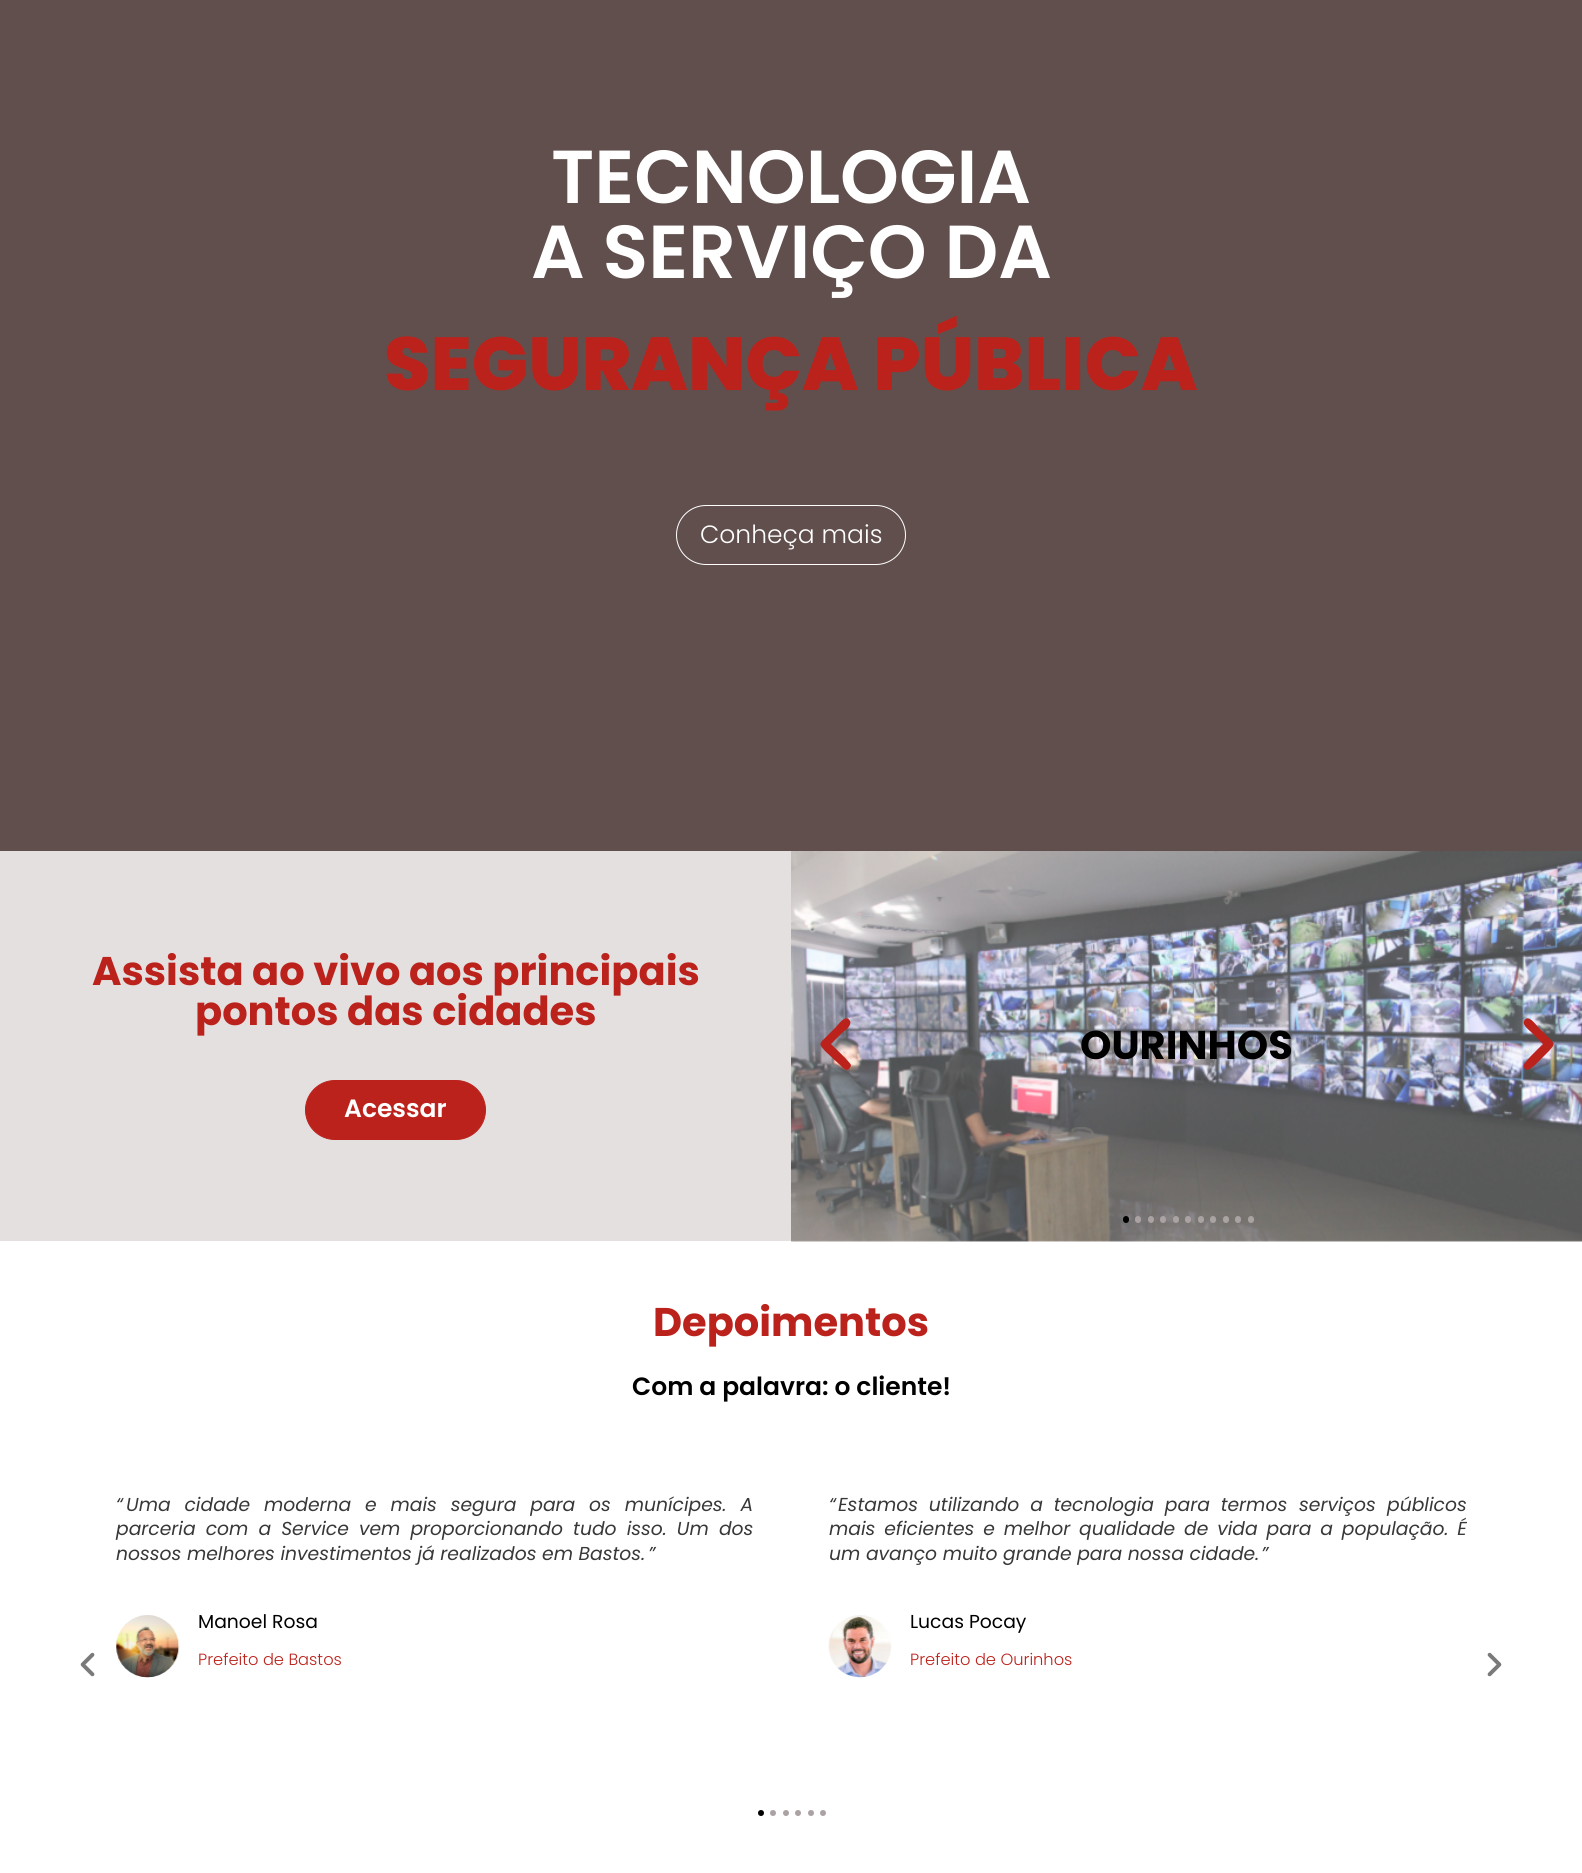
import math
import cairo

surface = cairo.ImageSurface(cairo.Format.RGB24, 1582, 1873)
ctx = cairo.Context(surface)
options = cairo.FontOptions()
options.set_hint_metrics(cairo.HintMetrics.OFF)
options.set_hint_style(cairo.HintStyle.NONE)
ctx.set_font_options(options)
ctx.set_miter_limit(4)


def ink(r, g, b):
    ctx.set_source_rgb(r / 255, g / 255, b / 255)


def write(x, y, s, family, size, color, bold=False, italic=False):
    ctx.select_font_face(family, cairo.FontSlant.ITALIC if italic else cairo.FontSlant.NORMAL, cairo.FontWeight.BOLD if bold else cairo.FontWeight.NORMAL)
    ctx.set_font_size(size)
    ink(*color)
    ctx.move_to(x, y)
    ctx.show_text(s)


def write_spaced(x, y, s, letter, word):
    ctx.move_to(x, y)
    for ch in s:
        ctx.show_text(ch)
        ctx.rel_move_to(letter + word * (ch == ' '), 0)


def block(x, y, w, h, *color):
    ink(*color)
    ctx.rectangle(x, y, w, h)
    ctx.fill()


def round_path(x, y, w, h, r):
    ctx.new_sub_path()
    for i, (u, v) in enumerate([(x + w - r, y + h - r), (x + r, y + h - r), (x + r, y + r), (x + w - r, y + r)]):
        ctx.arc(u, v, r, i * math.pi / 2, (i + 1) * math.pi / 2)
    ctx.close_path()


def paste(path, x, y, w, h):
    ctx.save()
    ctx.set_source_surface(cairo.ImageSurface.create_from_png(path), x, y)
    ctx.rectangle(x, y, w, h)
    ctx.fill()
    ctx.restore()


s1 = dict(family="Poppins SemiBold", size=75, color=(255, 255, 255))
s2 = dict(family="Poppins ExtraBold", size=75, color=(188, 34, 28))
s3 = dict(family="Poppins Light", size=25, color=(255, 255, 255))
s4 = dict(family="Poppins", size=40, color=(188, 34, 28), bold=True)
s5 = dict(family="Poppins SemiBold", size=25, color=(255, 255, 255))
s6 = dict(family="Poppins", size=40, color=(0, 0, 0), bold=True)
s7 = dict(family="Poppins SemiBold", size=25, color=(0, 0, 0))
s8 = dict(family="Poppins", size=18.75, color=(56, 56, 56), italic=True)
s9 = dict(family="Poppins", size=18.75, color=(0, 0, 0))
s10 = dict(family="Poppins Light", size=16.25, color=(188, 34, 28))

ink(255, 255, 255)
ctx.paint()
block(0, 0, 1582, 851, 96, 79, 77)
write(551, 203, "TECNOLOGIA", **s1)
write(531, 278, "A SERVIÇO DA", **s1)
write(384, 390, "SEGURANÇA PÚBLICA", **s2)
round_path(676.5, 505.5, 229, 59, 29.5)
ink(255, 255, 255)
ctx.set_line_width(1)
ctx.stroke()
write(700, 543, "Conheça mais", **s3)
block(0, 851, 1582, 390, 228, 224, 224)
write(92, 985, "Assista ao vivo aos principais", **s4)
write(195, 1025, "pontos das cidades", **s4)
round_path(305.5, 1080.5, 180, 59, 29.5)
ctx.fill_preserve()
ctx.stroke()
write(344, 1117, "Acessar", **s5)
paste("pic1.png", 791, 851, 791, 391)
ink(188, 34, 28)
ctx.new_path()
ctx.move_to(822, 1041)
ctx.curve_to(818, 1045, 823, 1048, 825, 1051)
ctx.line_to(840, 1065)
ctx.curve_to(842, 1067, 846, 1072, 849, 1069)
ctx.curve_to(850, 1068, 851, 1066, 851, 1065)
ctx.curve_to(850, 1062, 834, 1047, 831, 1044)
ctx.line_to(843, 1032)
ctx.curve_to(846, 1030, 852, 1025, 850, 1021)
ctx.curve_to(846, 1013, 838, 1025, 836, 1027)
ctx.close_path()
ctx.fill()
ctx.new_path()
ctx.move_to(1552, 1041)
ctx.curve_to(1556, 1045, 1551, 1048, 1549, 1051)
ctx.line_to(1535, 1065)
ctx.curve_to(1532, 1067, 1528, 1072, 1525, 1069)
ctx.curve_to(1524, 1068, 1523, 1066, 1524, 1065)
ctx.curve_to(1524, 1062, 1540, 1047, 1543, 1044)
ctx.line_to(1531, 1032)
ctx.curve_to(1529, 1030, 1522, 1025, 1524, 1021)
ctx.curve_to(1528, 1013, 1536, 1025, 1538, 1027)
ctx.close_path()
ctx.fill()
write(1080, 1059, "OURINHOS", **s6)
round_path(1123, 1216, 6, 7, 3)
ctx.fill()
ink(171, 163, 163)
round_path(1135, 1216, 6, 7, 3)
ctx.fill()
round_path(1148, 1216, 6, 7, 3)
ctx.fill()
round_path(1160, 1216, 6, 7, 3)
ctx.fill()
round_path(1173, 1216, 6, 7, 3)
ctx.fill()
round_path(1185, 1216, 6, 7, 3)
ctx.fill()
round_path(1198, 1216, 6, 7, 3)
ctx.fill()
round_path(1210, 1216, 6, 7, 3)
ctx.fill()
round_path(1223, 1216, 6, 7, 3)
ctx.fill()
round_path(1235, 1216, 6, 7, 3)
ctx.fill()
round_path(1248, 1216, 6, 7, 3)
ctx.fill()
write(653, 1336, "Depoimentos", **s4)
write(632, 1395, "Com a palavra: o cliente!", **s7)
write(116, 1511, "“", **s8)
write_spaced(126, 1511, "Uma cidade moderna e mais segura para os munícipes. A", 0, 8.25)
write_spaced(116, 1535, "parceria com a Service vem proporcionando tudo isso. Um dos", 0, 4.5)
write(116, 1560, "nossos melhores investimentos já realizados em Bastos.", **s8)
write(648, 1560, "”", **s8)
paste("pic2.png", 116, 1615, 64, 63)
write(198, 1628, "Manoel Rosa", **s9)
write(198, 1665, "Prefeito de Bastos", **s10)
write(829, 1511, "“", **s8)
write_spaced(838, 1511, "Estamos utilizando a tecnologia para termos", 0, 5.25)
write(1299, 1511, "serviços", **s8)
write(1387, 1511, "públicos", **s8)
write_spaced(829, 1535, "mais eficientes e melhor qualidade de vida para a população. É", 0, 3.25)
write(829, 1560, "um avanço muito grande para nossa cidade.", **s8)
write(1261, 1560, "”", **s8)
paste("pic3.png", 828, 1615, 64, 63)
write(910, 1628, "Lucas Pocay", **s9)
write(910, 1665, "Prefeito de Ourinhos", **s10)
paste("pic4.png", 80, 1652, 15, 25)
paste("pic5.png", 1487, 1652, 15, 25)
ink(0, 0, 0)
ctx.arc(761, 1813, 3, 0, 2 * math.pi)
ctx.fill()
ink(171, 163, 163)
ctx.arc(773, 1813, 3, 0, 2 * math.pi)
ctx.fill()
ctx.arc(786, 1813, 3, 0, 2 * math.pi)
ctx.fill()
ctx.arc(798, 1813, 3, 0, 2 * math.pi)
ctx.fill()
ctx.arc(811, 1813, 3, 0, 2 * math.pi)
ctx.fill()
ctx.arc(823, 1813, 3, 0, 2 * math.pi)
ctx.fill()
surface.write_to_png("screenshot.png")
